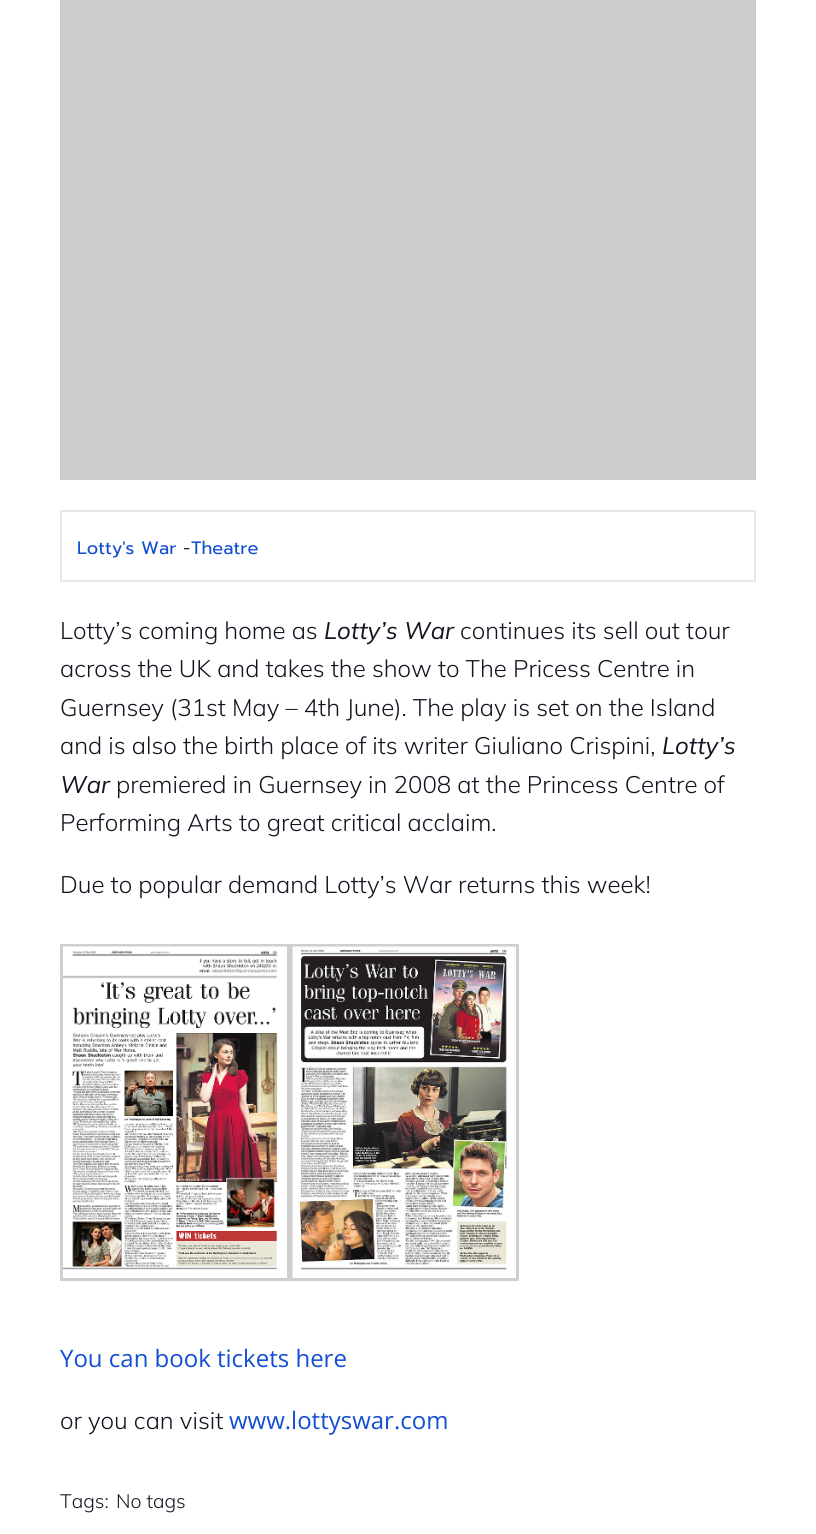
import math
import cairo

surface = cairo.ImageSurface(cairo.Format.RGB24, 816, 1534)
ctx = cairo.Context(surface)
options = cairo.FontOptions()
options.set_hint_metrics(cairo.HintMetrics.OFF)
options.set_hint_style(cairo.HintStyle.NONE)
ctx.set_font_options(options)
ctx.set_miter_limit(4)


def ink(r, g, b):
    ctx.set_source_rgb(r / 255, g / 255, b / 255)


def write(x, y, s, family, size, color, bold=False, italic=False):
    ctx.select_font_face(family, cairo.FontSlant.ITALIC if italic else cairo.FontSlant.NORMAL, cairo.FontWeight.BOLD if bold else cairo.FontWeight.NORMAL)
    ctx.set_font_size(size)
    ink(*color)
    ctx.move_to(x, y)
    ctx.show_text(s)


def block(x, y, w, h, *color):
    ink(*color)
    ctx.rectangle(x, y, w, h)
    ctx.fill()


def paste(path, x, y, w, h):
    ctx.save()
    ctx.set_source_surface(cairo.ImageSurface.create_from_png(path), x, y)
    ctx.rectangle(x, y, w, h)
    ctx.fill()
    ctx.restore()


s1 = dict(family="Prompt", size=18, color=(20, 79, 209))
s2 = dict(family="Prompt Light", size=18, color=(20, 20, 33))
s3 = dict(family="Mulish Light", size=24, color=(20, 20, 33))
s4 = dict(family="Mulish", size=24, color=(20, 20, 33), italic=True)
s5 = dict(family="Open Sans", size=24, color=(20, 79, 209))
s6 = dict(family="Mulish Light", size=19.5, color=(20, 20, 33))

ink(255, 255, 255)
ctx.paint()
block(60, 0, 696, 480, 204, 204, 204)
ctx.rectangle(61, 511, 694, 70)
ink(230, 230, 230)
ctx.stroke()
write(77, 554, "Lotty's War", **s1)
write(183, 554, "-", **s2)
write(191, 554, "Theatre", **s1)
write(60, 639, "Lotty’s coming home as", **s3)
write(324, 639, "Lotty’s War", **s4)
write(460, 639, "continues its sell out tour", **s3)
write(60, 677, "across the UK and takes the show to The Pricess Centre in", **s3)
write(60, 716, "Guernsey (31st May – 4th June). The play is set on the Island", **s3)
write(60, 754, "and is also the birth place of its writer Giuliano Crispini,", **s3)
write(662, 754, "Lotty’s", **s4)
write(60, 793, "War", **s4)
write(116, 793, "premiered in Guernsey in 2008 at the Princess Centre of", **s3)
write(60, 831, "Performing Arts to great critical acclaim.", **s3)
write(60, 893, "Due to popular demand Lotty’s War returns this week!", **s3)
ctx.rectangle(61.5, 945.5, 227, 334)
ink(207, 207, 207)
ctx.set_line_width(3)
ctx.stroke()
paste("pic1.png", 63, 946, 224, 324)
ctx.rectangle(291.5, 945.5, 226, 334)
ctx.stroke()
paste("pic2.png", 292, 946, 224, 332)
write(60, 1367, "You can book tickets here", **s5)
write(60, 1429, "or you can visit", **s3)
write(229, 1429, "www.lottyswar.com", **s5)
write(60, 1508, "Tags:", **s6)
write(116, 1508, "No tags", **s6)
surface.write_to_png("screenshot.png")
